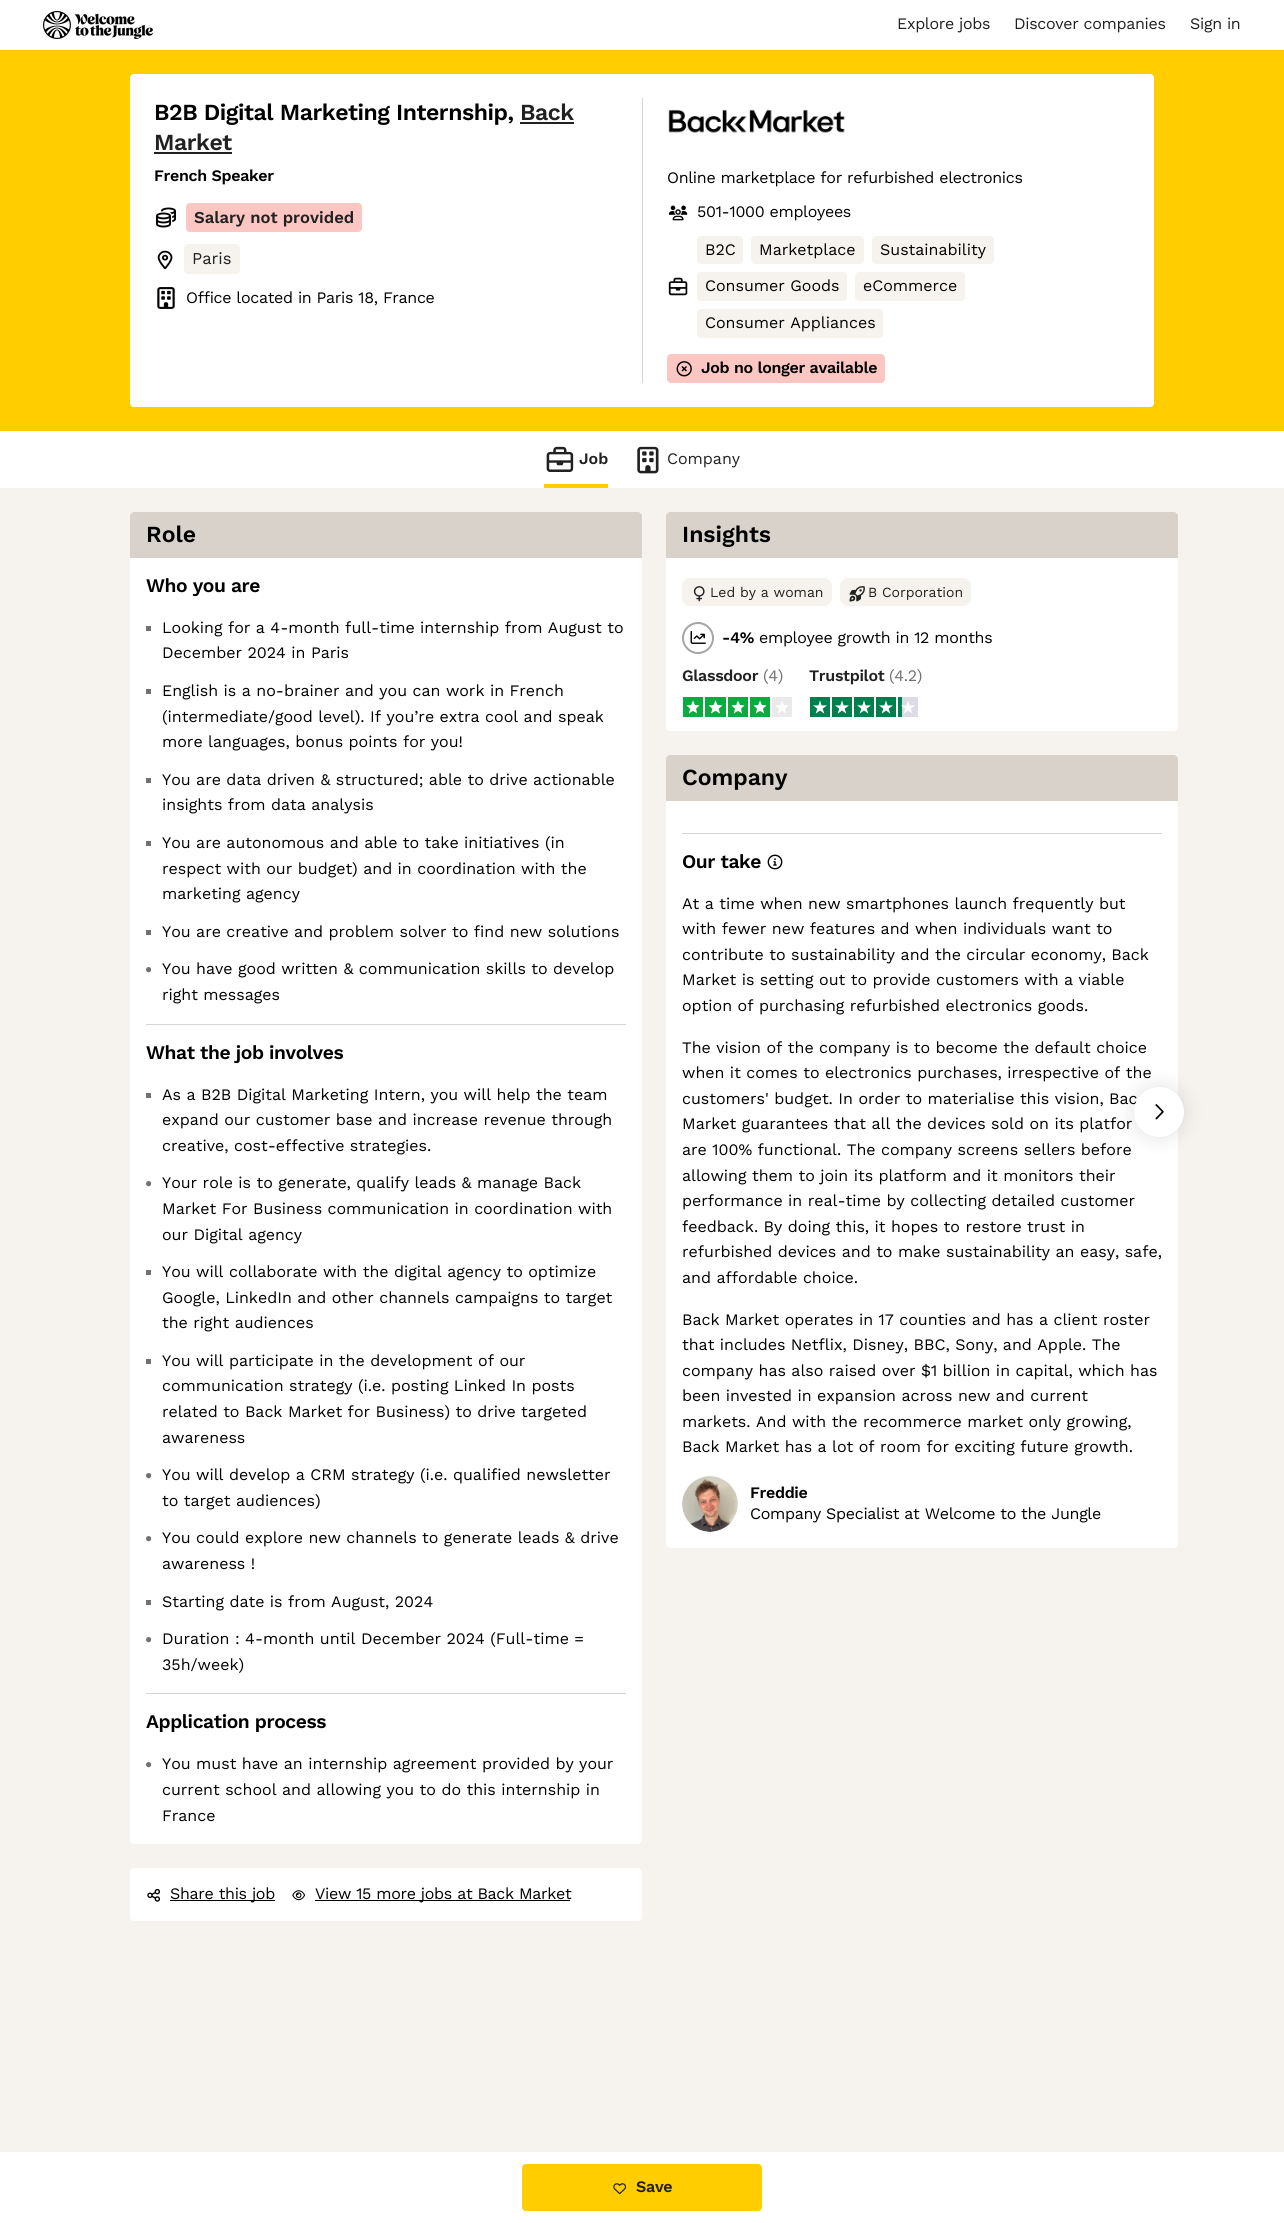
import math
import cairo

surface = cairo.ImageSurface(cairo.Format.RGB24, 1284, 2223)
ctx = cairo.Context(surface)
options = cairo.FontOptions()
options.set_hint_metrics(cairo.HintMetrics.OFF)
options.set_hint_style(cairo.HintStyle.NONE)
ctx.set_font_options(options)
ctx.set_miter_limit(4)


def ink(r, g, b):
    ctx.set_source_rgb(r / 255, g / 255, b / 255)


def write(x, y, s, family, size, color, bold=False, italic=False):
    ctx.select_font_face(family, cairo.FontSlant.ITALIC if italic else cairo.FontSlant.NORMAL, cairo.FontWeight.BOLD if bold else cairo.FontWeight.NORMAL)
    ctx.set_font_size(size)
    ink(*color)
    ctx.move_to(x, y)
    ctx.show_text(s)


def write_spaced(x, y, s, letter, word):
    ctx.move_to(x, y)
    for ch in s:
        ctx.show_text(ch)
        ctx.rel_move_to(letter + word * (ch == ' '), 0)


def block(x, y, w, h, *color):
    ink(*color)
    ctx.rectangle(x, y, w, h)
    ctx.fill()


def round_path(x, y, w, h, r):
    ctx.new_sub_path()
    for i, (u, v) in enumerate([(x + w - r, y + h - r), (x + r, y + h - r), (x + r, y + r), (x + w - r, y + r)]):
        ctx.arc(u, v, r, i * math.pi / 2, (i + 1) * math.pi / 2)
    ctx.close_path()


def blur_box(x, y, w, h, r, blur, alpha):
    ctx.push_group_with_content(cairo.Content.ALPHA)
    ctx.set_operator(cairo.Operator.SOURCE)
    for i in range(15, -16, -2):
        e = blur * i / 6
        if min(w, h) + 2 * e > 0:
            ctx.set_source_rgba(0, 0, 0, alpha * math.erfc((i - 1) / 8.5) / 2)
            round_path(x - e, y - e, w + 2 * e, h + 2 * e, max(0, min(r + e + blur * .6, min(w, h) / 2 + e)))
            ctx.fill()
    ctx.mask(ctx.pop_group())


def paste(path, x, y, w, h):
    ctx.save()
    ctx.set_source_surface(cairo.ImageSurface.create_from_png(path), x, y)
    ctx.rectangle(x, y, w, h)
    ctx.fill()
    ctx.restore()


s1 = dict(family="Work Sans SemiBold", size=16.6, color=(33, 33, 33))
s2 = dict(family="Work Sans", size=16.6, color=(33, 33, 33))
s3 = dict(family="Work Sans", size=16, color=(0, 0, 0))
s4 = dict(family="Work Sans SemiBold", size=16, color=(33, 33, 33))
s5 = dict(family="Work Sans", size=16, color=(33, 33, 33))
s6 = dict(family="Work Sans SemiBold", size=23, color=(0, 0, 0))
s7 = dict(family="Work Sans", size=14, color=(33, 33, 33))

ink(246, 243, 239)
ctx.paint()
block(0, 0, 1284, 50, 255, 255, 255)
paste("pic1.png", 43, 11, 110, 28)
ctx.select_font_face("Work Sans")
ctx.set_font_size(16)
ink(33, 33, 33)
write_spaced(897, 29, "Explore jobs", -0.3, 0)
write_spaced(1014, 29, "Discover companies", -0.3, 0)
write_spaced(1190, 29, "Sign in", -0.3, 0)
block(0, 50, 1284, 381, 255, 205, 0)
ink(255, 255, 255)
round_path(130, 74, 1024, 333, 4)
ctx.fill()
ctx.select_font_face("Work Sans SemiBold")
ctx.set_font_size(23)
ink(0, 0, 0)
write_spaced(154, 120, "B2B Digital Marketing Internship,", -0.45, 0)
ink(33, 33, 33)
write_spaced(520, 120, "Back", -0.45, 0)
block(520, 122, 54, 2, 33, 33, 33)
write_spaced(154, 150, "Market", -0.45, 0)
block(154, 152, 78, 2, 33, 33, 33)
ctx.set_font_size(16)
ink(0, 0, 0)
write_spaced(154, 181, "French Speaker", -0.3, 0)
paste("pic2.png", 156, 207, 20, 21)
ink(252, 199, 195)
round_path(186, 203, 176, 29, 4)
ctx.fill()
write(194, 223, "Salary not provided", **s1)
paste("pic3.png", 157, 250, 16, 20)
ink(246, 243, 239)
round_path(184, 244, 56, 30, 4)
ctx.fill()
write(192, 264, "Paris", **s2)
paste("pic4.png", 157, 287, 18, 22)
ctx.set_font_size(16)
ink(0, 0, 0)
write_spaced(186, 303, "Office located in Paris 18, France", -0.3, 0)
block(642, 98, 1, 285, 213, 213, 213)
paste("pic5.png", 668, 109, 177, 24)
ink(0, 0, 0)
write_spaced(667, 183, "Online marketplace for refurbished electronics", -0.3, 0)
paste("pic6.png", 668, 205, 20, 16)
write_spaced(697, 217, "501-1000 employees", -0.3, 0)
paste("pic7.png", 668, 277, 20, 19)
ink(246, 243, 239)
round_path(697, 236, 46, 28, 4)
ctx.fill()
write(705, 255, "B2C", **s3)
ink(246, 243, 239)
round_path(751, 236, 113, 28, 4)
ctx.fill()
write(759, 255, "Marketplace", **s3)
ink(246, 243, 239)
round_path(872, 236, 122, 28, 4)
ctx.fill()
write(880, 255, "Sustainability", **s3)
ink(246, 243, 239)
round_path(697, 272, 150, 29, 4)
ctx.fill()
write(705, 291, "Consumer Goods", **s3)
ink(246, 243, 239)
round_path(855, 272, 110, 29, 4)
ctx.fill()
write(863, 291, "eCommerce", **s3)
ink(246, 243, 239)
round_path(697, 309, 186, 29, 4)
ctx.fill()
write(705, 328, "Consumer Appliances", **s3)
ink(252, 199, 195)
round_path(667, 354, 218, 29, 4)
ctx.fill()
paste("pic8.png", 676, 361, 16, 16)
ctx.select_font_face("Work Sans SemiBold")
ink(0, 0, 0)
write_spaced(701, 373, "Job no longer available", -0.3, 0)
block(0, 431, 1284, 57, 255, 255, 255)
paste("pic9.png", 546, 446, 28, 26)
write(579, 464, "Job", **s4)
block(544, 484, 64, 4, 255, 205, 0)
paste("pic10.png", 637, 446, 22, 28)
write(667, 464, "Company", **s5)
ink(255, 255, 255)
round_path(130, 512, 512, 1332, 4)
ctx.fill()
ink(216, 210, 203)
ctx.new_path()
ctx.move_to(134, 512)
ctx.line_to(638, 512)
ctx.curve_to(640, 512, 642, 514, 642, 516)
ctx.line_to(642, 558)
ctx.line_to(130, 558)
ctx.line_to(130, 516)
ctx.curve_to(130, 514, 132, 512, 134, 512)
ctx.close_path()
ctx.fill()
write(146, 542, "Role", **s6)
ctx.set_font_size(19.25)
write_spaced(146, 592, "Who you are", -0.4, 0)
block(146, 626, 5, 5, 113, 113, 113)
write(162, 633, "Looking for a 4-month full-time internship from August to", **s3)
write(162, 658, "December 2024 in Paris", **s3)
block(146, 689, 5, 5, 113, 113, 113)
write(162, 696, "English is a no-brainer and you can work in French", **s3)
write(162, 722, "(intermediate/good level). If you’re extra cool and speak", **s3)
write(162, 747, "more languages, bonus points for you!", **s3)
block(146, 778, 5, 5, 113, 113, 113)
write(162, 785, "You are data driven & structured; able to drive actionable", **s3)
write(162, 810, "insights from data analysis", **s3)
block(146, 841, 5, 5, 113, 113, 113)
write(162, 848, "You are autonomous and able to take initiatives (in", **s3)
write(162, 874, "respect with our budget) and in coordination with the", **s3)
write(162, 899, "marketing agency", **s3)
block(146, 930, 5, 5, 113, 113, 113)
write(162, 937, "You are creative and problem solver to find new solutions", **s3)
paste("pic11.png", 146, 967, 5, 6)
write(162, 974, "You have good written & communication skills to develop", **s3)
write(162, 1000, "right messages", **s3)
block(146, 1024, 480, 1, 213, 213, 213)
ctx.select_font_face("Work Sans SemiBold")
ctx.set_font_size(19.25)
ink(0, 0, 0)
write_spaced(146, 1059, "What the job involves", -0.4, 0)
block(146, 1093, 5, 5, 113, 113, 113)
write(162, 1100, "As a B2B Digital Marketing Intern, you will help the team", **s3)
write(162, 1125, "expand our customer base and increase revenue through", **s3)
write(162, 1151, "creative, cost-effective strategies.", **s3)
paste("pic11.png", 146, 1181, 5, 6)
write(162, 1188, "Your role is to generate, qualify leads & manage Back", **s3)
write(162, 1214, "Market For Business communication in coordination with", **s3)
write(162, 1240, "our Digital agency", **s3)
block(146, 1270, 5, 5, 113, 113, 113)
write(162, 1277, "You will collaborate with the digital agency to optimize", **s3)
write(162, 1303, "Google, LinkedIn and other channels campaigns to target", **s3)
write(162, 1328, "the right audiences", **s3)
block(146, 1359, 5, 5, 113, 113, 113)
write(162, 1366, "You will participate in the development of our", **s3)
write(162, 1391, "communication strategy (i.e. posting Linked In posts", **s3)
write(162, 1417, "related to Back Market for Business) to drive targeted", **s3)
write(162, 1443, "awareness", **s3)
paste("pic11.png", 146, 1473, 5, 6)
write(162, 1480, "You will develop a CRM strategy (i.e. qualified newsletter", **s3)
write(162, 1506, "to target audiences)", **s3)
paste("pic11.png", 146, 1536, 5, 6)
write(162, 1543, "You could explore new channels to generate leads & drive", **s3)
write(162, 1569, "awareness !", **s3)
block(146, 1600, 5, 5, 113, 113, 113)
write(162, 1607, "Starting date is from August, 2024", **s3)
paste("pic11.png", 146, 1637, 5, 6)
write(162, 1644, "Duration : 4-month until December 2024 (Full-time =", **s3)
write(162, 1670, "35h/week)", **s3)
block(146, 1693, 480, 1, 213, 213, 213)
ctx.select_font_face("Work Sans SemiBold")
ctx.set_font_size(19.25)
ink(0, 0, 0)
write_spaced(146, 1728, "Application process", -0.4, 0)
paste("pic11.png", 146, 1762, 5, 6)
write(162, 1769, "You must have an internship agreement provided by your", **s3)
write(162, 1795, "current school and allowing you to do this internship in", **s3)
write(162, 1821, "France", **s3)
ink(255, 255, 255)
round_path(130, 1868, 512, 53, 4)
ctx.fill()
paste("pic12.png", 147, 1888, 14, 14)
block(170, 1900, 105, 1, 0, 0, 0)
write_spaced(170, 1899, "Share this job", -0.3, 0)
paste("pic13.png", 292, 1890, 13, 11)
block(315, 1900, 255, 1, 0, 0, 0)
write_spaced(315, 1899, "View 15 more jobs at Back Market", -0.3, 0)
ink(255, 255, 255)
round_path(666, 512, 512, 219, 4)
ctx.fill()
ink(216, 210, 203)
ctx.new_path()
ctx.move_to(670, 512)
ctx.line_to(1174, 512)
ctx.curve_to(1176, 512, 1178, 514, 1178, 516)
ctx.line_to(1178, 558)
ctx.line_to(666, 558)
ctx.line_to(666, 516)
ctx.curve_to(666, 514, 668, 512, 670, 512)
ctx.close_path()
ctx.fill()
write(682, 542, "Insights", **s6)
ink(246, 243, 239)
round_path(682, 578, 150, 28, 8)
ctx.fill()
paste("pic14.png", 693, 586, 12, 16)
write(710, 597, "Led by a woman", **s7)
ink(246, 243, 239)
round_path(840, 578, 131, 28, 8)
ctx.fill()
paste("pic15.png", 849, 586, 16, 16)
write(868, 597, "B Corporation", **s7)
ctx.new_path()
ctx.arc(698, 638, 15, 0, 2 * math.pi)
ink(165, 165, 165)
ctx.stroke()
paste("pic16.png", 690, 630, 16, 14)
ctx.select_font_face("Work Sans SemiBold")
ctx.set_font_size(16)
ink(0, 0, 0)
write_spaced(722, 643, "-4%", -0.3, 0)
ctx.select_font_face("Work Sans")
write_spaced(759, 643, "employee growth in 12 months", -0.3, 0)
ctx.select_font_face("Work Sans SemiBold")
ink(33, 33, 33)
write_spaced(682, 681, "Glassdoor", -0.3, 0)
ctx.select_font_face("Work Sans")
ink(113, 113, 113)
write_spaced(763, 681, "(4)", -0.3, 0)
block(683, 697, 20, 20, 12, 170, 65)
paste("pic17.png", 686, 700, 14, 14)
block(705, 697, 21, 20, 12, 170, 65)
paste("pic18.png", 708, 700, 15, 14)
block(728, 697, 20, 20, 12, 170, 65)
paste("pic19.png", 731, 700, 14, 14)
block(750, 697, 20, 20, 12, 170, 65)
paste("pic19.png", 753, 700, 14, 14)
block(772, 697, 20, 20, 234, 234, 234)
paste("pic20.png", 776, 701, 12, 12)
ctx.select_font_face("Work Sans SemiBold")
ink(33, 33, 33)
write_spaced(809, 681, "Trustpilot", -0.3, 0)
ctx.select_font_face("Work Sans")
ink(113, 113, 113)
write_spaced(889, 681, "(4.2)", -0.3, 0)
block(810, 697, 20, 20, 0, 127, 78)
paste("pic21.png", 813, 700, 14, 14)
block(832, 697, 20, 20, 0, 127, 78)
paste("pic21.png", 835, 700, 14, 14)
block(854, 697, 20, 20, 0, 127, 78)
paste("pic21.png", 857, 700, 14, 14)
block(876, 697, 20, 20, 0, 127, 78)
paste("pic21.png", 879, 700, 14, 14)
block(898, 697, 4, 20, 0, 127, 78)
block(902, 697, 16, 20, 220, 220, 230)
paste("pic22.png", 901, 701, 14, 13)
ink(255, 255, 255)
round_path(666, 755, 512, 793, 4)
ctx.fill()
ink(216, 210, 203)
ctx.new_path()
ctx.move_to(670, 755)
ctx.line_to(1174, 755)
ctx.curve_to(1176, 755, 1178, 757, 1178, 759)
ctx.line_to(1178, 801)
ctx.line_to(666, 801)
ctx.line_to(666, 759)
ctx.curve_to(666, 757, 668, 755, 670, 755)
ctx.close_path()
ctx.fill()
write(682, 785, "Company", **s6)
block(682, 833, 480, 1, 213, 213, 213)
ctx.set_font_size(19.25)
ink(0, 0, 0)
write_spaced(682, 868, "Our take", -0.4, 0)
paste("pic23.png", 767, 854, 16, 16)
write(682, 909, "At a time when new smartphones launch frequently but", **s3)
write(682, 934, "with fewer new features and when individuals want to", **s3)
write(682, 960, "contribute to sustainability and the circular economy, Back", **s3)
write(682, 985, "Market is setting out to provide customers with a viable", **s3)
write(682, 1011, "option of purchasing refurbished electronics goods.", **s3)
write(682, 1053, "The vision of the company is to become the default choice", **s3)
write(682, 1078, "when it comes to electronics purchases, irrespective of the", **s3)
write(682, 1104, "customers' budget. In order to materialise this vision, Bac", **s3)
write(682, 1129, "Market guarantees that all the devices sold on its platfor", **s3)
write(682, 1155, "are 100% functional. The company screens sellers before", **s3)
write(682, 1181, "allowing them to join its platform and it monitors their", **s3)
write(682, 1206, "performance in real-time by collecting detailed customer", **s3)
write(682, 1232, "feedback. By doing this, it hopes to restore trust in", **s3)
write(682, 1257, "refurbished devices and to make sustainability an easy, safe,", **s3)
write(682, 1283, "and affordable choice.", **s3)
write(682, 1325, "Back Market operates in 17 counties and has a client roster", **s3)
write(682, 1350, "that includes Netflix, Disney, BBC, Sony, and Apple. The", **s3)
write(682, 1376, "company has also raised over $1 billion in capital, which has", **s3)
write(682, 1401, "been invested in expansion across new and current", **s3)
write(682, 1427, "markets. And with the recommerce market only growing,", **s3)
write(682, 1452, "Back Market has a lot of room for exciting future growth.", **s3)
paste("pic24.png", 682, 1476, 56, 56)
ctx.select_font_face("Work Sans SemiBold")
write_spaced(750, 1498, "Freddie", -0.3, 0)
ctx.select_font_face("Work Sans")
write_spaced(750, 1519, "Company Specialist at Welcome to the Jungle", -0.3, 0)
ink(0, 0, 0)
blur_box(1134, 1087, 50, 50, 25, 10, 0.11)
ink(255, 255, 255)
ctx.arc(1159, 1112, 25, 0, 2 * math.pi)
ctx.fill()
paste("pic25.png", 1155, 1104, 9, 16)
block(0, 2152, 1284, 71, 255, 255, 255)
ink(255, 205, 0)
round_path(522.5, 2164.5, 239, 46, 3.5)
ctx.fill_preserve()
ctx.set_line_width(1)
ctx.stroke()
paste("pic26.png", 613, 2183, 14, 12)
ctx.select_font_face("Work Sans SemiBold")
ink(33, 33, 33)
write_spaced(636, 2192, "Save", -0.3, 0)
surface.write_to_png("screenshot.png")
